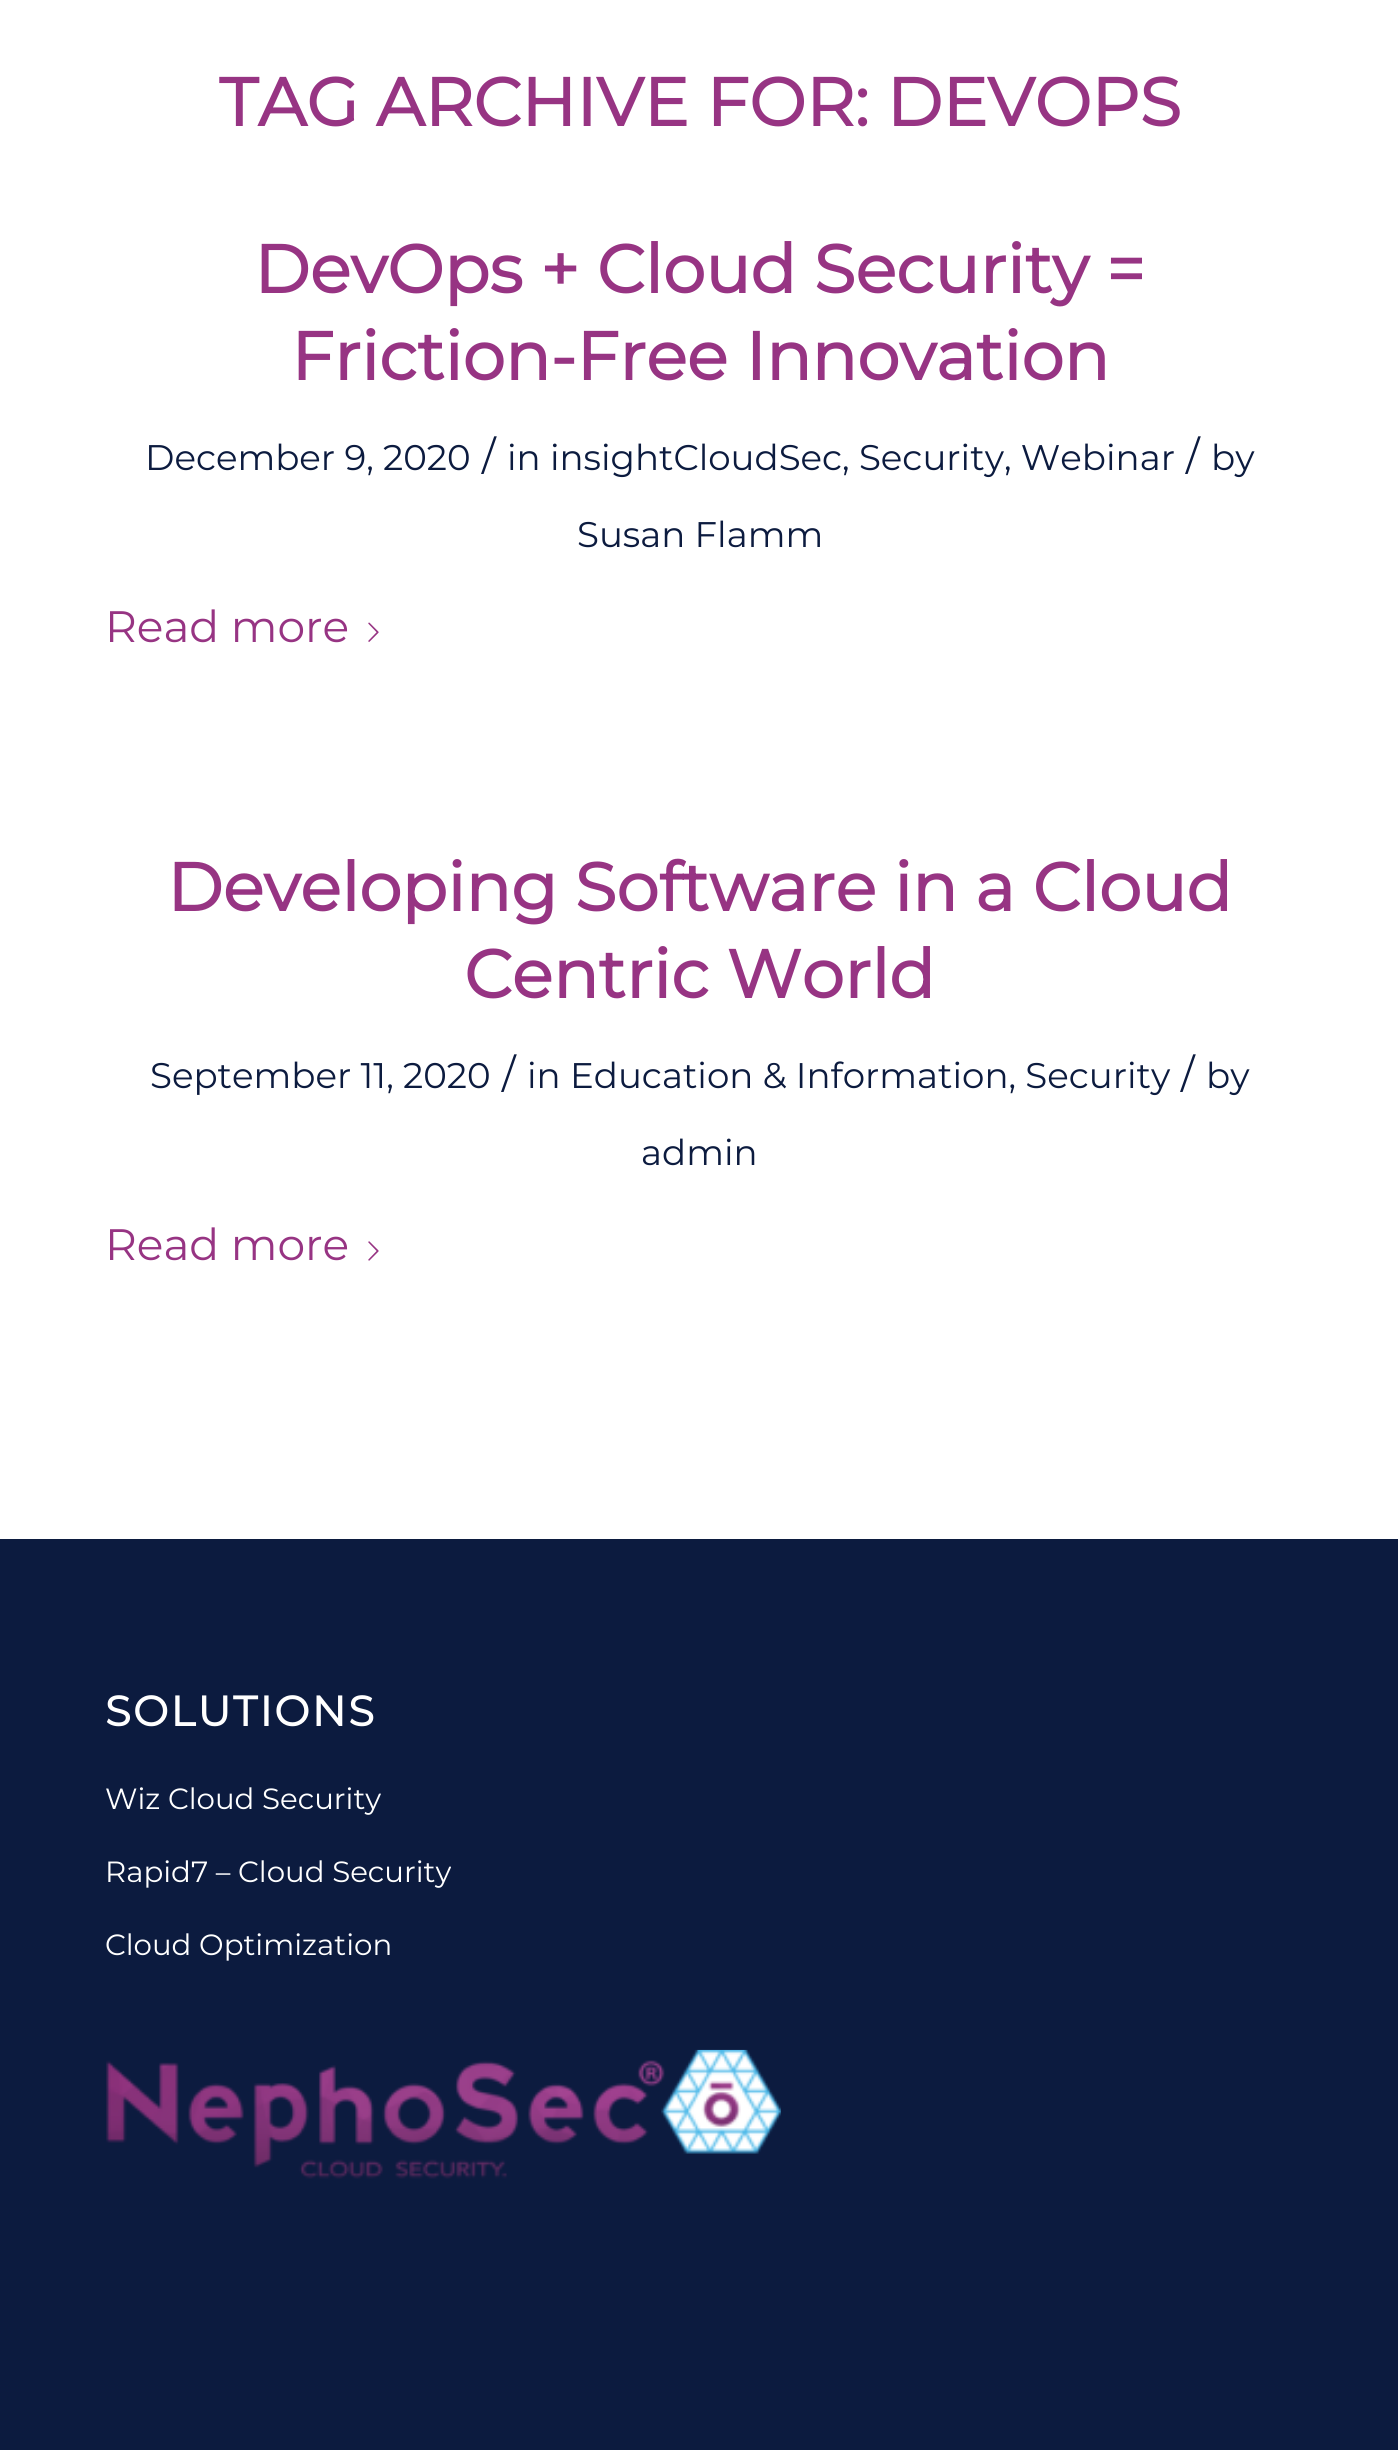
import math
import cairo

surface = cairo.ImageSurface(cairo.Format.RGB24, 1398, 2450)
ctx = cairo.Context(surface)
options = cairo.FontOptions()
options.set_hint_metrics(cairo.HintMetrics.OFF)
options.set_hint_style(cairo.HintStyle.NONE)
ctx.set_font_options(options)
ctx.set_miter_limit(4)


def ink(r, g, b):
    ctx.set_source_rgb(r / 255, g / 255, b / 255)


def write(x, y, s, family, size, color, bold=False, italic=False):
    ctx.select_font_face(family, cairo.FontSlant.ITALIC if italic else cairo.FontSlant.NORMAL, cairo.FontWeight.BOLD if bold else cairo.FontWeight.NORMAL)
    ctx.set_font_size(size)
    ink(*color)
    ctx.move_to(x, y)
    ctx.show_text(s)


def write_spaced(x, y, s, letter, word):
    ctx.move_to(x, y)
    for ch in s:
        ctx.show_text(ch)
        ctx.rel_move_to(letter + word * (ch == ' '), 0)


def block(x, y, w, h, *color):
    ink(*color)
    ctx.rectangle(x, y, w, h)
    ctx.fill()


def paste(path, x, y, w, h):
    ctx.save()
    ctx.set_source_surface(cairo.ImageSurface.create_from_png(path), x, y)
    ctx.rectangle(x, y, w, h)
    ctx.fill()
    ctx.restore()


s1 = dict(family="Montserrat", size=67.5, color=(151, 52, 131), bold=True)
s2 = dict(family="Montserrat Thin", size=35.6, color=(12, 27, 63))
s3 = dict(family="Montserrat Thin", size=40, color=(12, 27, 63))
s4 = dict(family="Montserrat Thin", size=44, color=(151, 52, 131))
s5 = dict(family="Montserrat Thin", size=29.25, color=(255, 255, 255))

ink(255, 255, 255)
ctx.paint()
write(219, 126, "TAG ARCHIVE FOR: DEVOPS", **s1)
write(254, 293, "DevOps + Cloud Security =", **s1)
write(291, 380, "Friction-Free Innovation", **s1)
write(145, 470, "December 9, 2020", **s2)
write(482, 470, "/", **s3)
write(507, 470, "in insightCloudSec, Security, Webinar", **s2)
write(1186, 470, "/", **s3)
write(1211, 470, "by", **s2)
write(577, 547, "Susan Flamm", **s2)
write(105, 642, "Read more", **s4)
paste("pic1.png", 368, 622, 11, 20)
write(167, 911, "Developing Software in a Cloud", **s1)
write(464, 998, "Centric World", **s1)
write(150, 1088, "September 11, 2020", **s2)
write(502, 1088, "/", **s3)
write(527, 1088, "in Education & Information, Security", **s2)
write(1181, 1088, "/", **s3)
write(1206, 1088, "by", **s2)
write(641, 1165, "admin", **s2)
write(105, 1260, "Read more", **s4)
paste("pic2.png", 368, 1241, 11, 20)
block(0, 1539, 1398, 911, 12, 27, 63)
ctx.select_font_face("Montserrat", cairo.FontSlant.NORMAL, cairo.FontWeight.BOLD)
ctx.set_font_size(42)
ink(255, 255, 255)
write_spaced(105, 1726, "SOLUTIONS", 2.25, 0)
write(105, 1809, "Wiz Cloud Security", **s5)
write(105, 1882, "Rapid7 – Cloud Security", **s5)
write(105, 1955, "Cloud Optimization", **s5)
paste("pic3.png", 106, 2049, 675, 130)
surface.write_to_png("screenshot.png")
